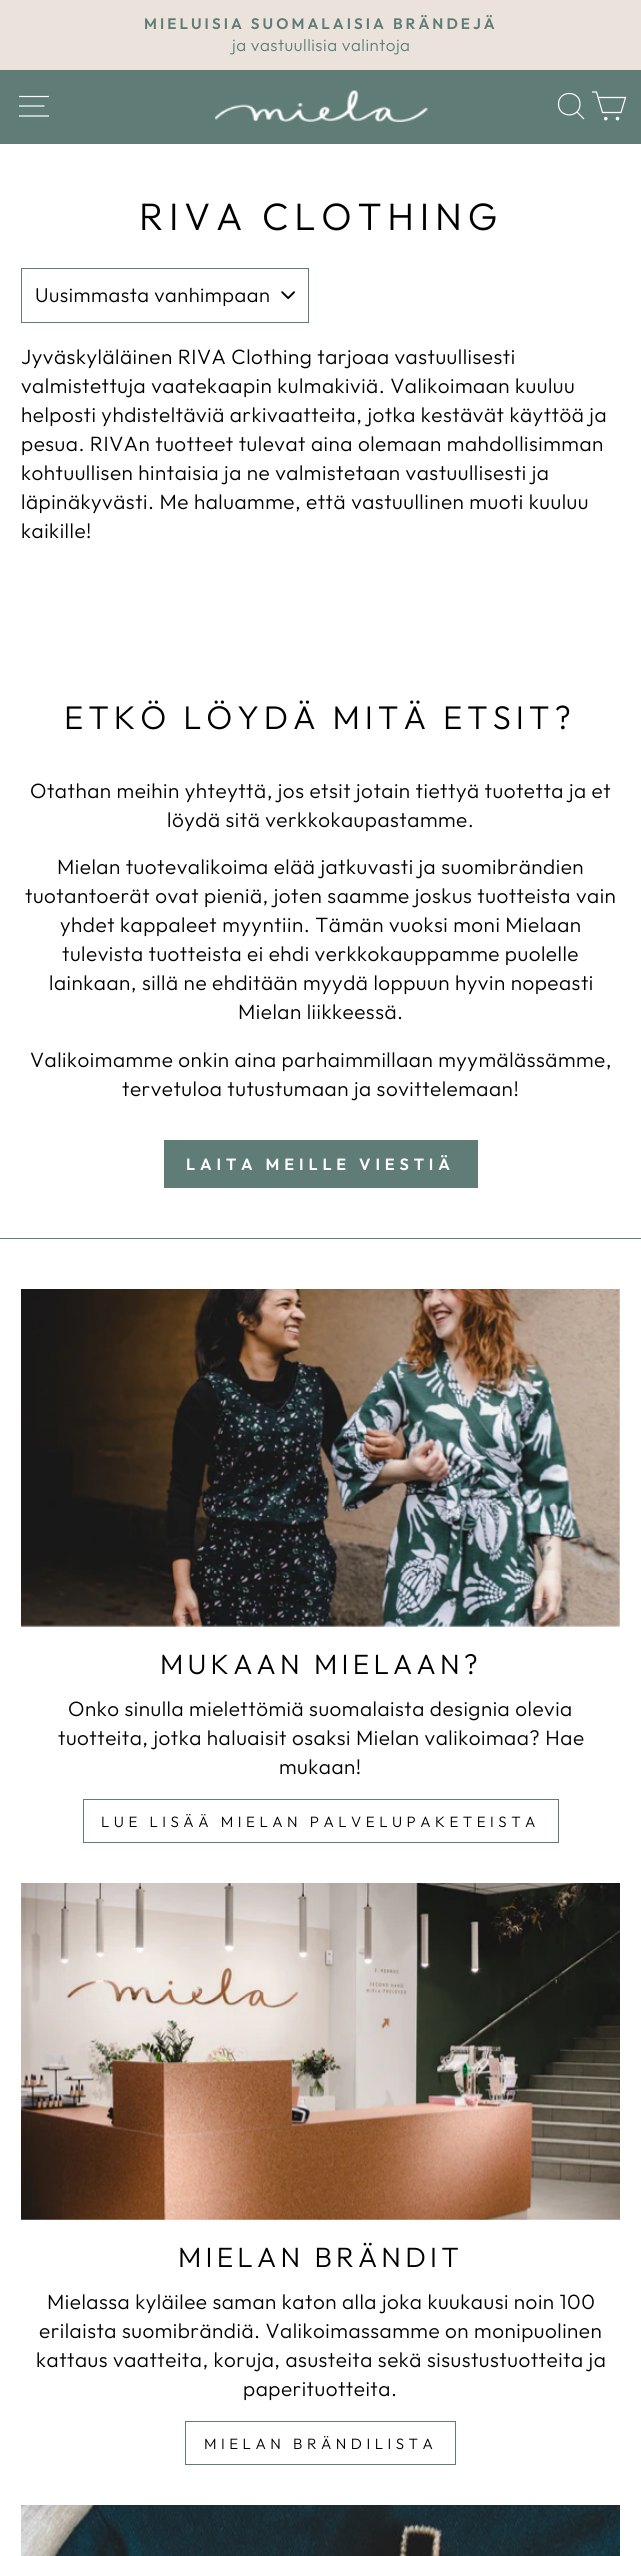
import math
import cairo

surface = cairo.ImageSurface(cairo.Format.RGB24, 641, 2556)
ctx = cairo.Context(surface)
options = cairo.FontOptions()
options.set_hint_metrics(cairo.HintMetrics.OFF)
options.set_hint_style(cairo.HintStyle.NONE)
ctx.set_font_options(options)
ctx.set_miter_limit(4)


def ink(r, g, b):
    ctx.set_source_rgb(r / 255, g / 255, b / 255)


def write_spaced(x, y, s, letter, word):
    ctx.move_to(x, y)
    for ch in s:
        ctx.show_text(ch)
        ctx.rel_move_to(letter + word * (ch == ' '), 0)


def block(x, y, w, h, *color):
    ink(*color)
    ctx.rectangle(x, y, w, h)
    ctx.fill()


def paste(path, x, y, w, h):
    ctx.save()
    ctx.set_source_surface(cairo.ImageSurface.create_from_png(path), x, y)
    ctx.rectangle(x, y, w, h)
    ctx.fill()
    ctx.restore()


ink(255, 255, 255)
ctx.paint()
block(0, 0, 641, 70, 235, 227, 219)
ctx.select_font_face("Outfit SemiBold")
ctx.set_font_size(15.2)
ink(95, 125, 118)
write_spaced(144, 29, "MIELUISIA SUOMALAISIA BRÄNDEJÄ", 3.05, 0)
ctx.select_font_face("Outfit Light")
ctx.set_font_size(16.9)
write_spaced(232, 51, "ja vastuullisia valintoja", 0.52, 0)
block(0, 70, 641, 74, 95, 125, 118)
ctx.new_path()
ctx.move_to(19, 96.5)
ctx.line_to(49, 96.5)
ctx.move_to(19, 106)
ctx.line_to(44.5, 106)
ctx.move_to(19, 116)
ctx.line_to(49, 116)
ink(255, 255, 255)
ctx.set_line_width(1.2)
ctx.stroke()
paste("pic1.png", 215, 90, 213, 32)
ctx.new_path()
ctx.move_to(580, 104)
ctx.curve_to(580, 118.5, 558.5, 118.5, 558.5, 104)
ctx.curve_to(558.5, 90, 580, 90, 580, 104)
ctx.close_path()
ctx.move_to(584, 119)
ctx.line_to(577, 112)
ctx.stroke()
ctx.new_path()
ctx.move_to(598, 97.5)
ctx.line_to(625.5, 97.5)
ctx.line_to(621, 112.5)
ctx.line_to(602.5, 112.5)
ctx.line_to(596.5, 92)
ctx.line_to(592, 92)
ctx.stroke()
ctx.arc(605.8, 118.6, 1.2, 0, 2 * math.pi)
ctx.fill_preserve()
ctx.stroke()
ctx.arc(617.5, 118.6, 1.2, 0, 2 * math.pi)
ctx.fill_preserve()
ctx.stroke()
ctx.set_font_size(38.25)
ink(0, 0, 0)
write_spaced(139, 230, "RIVA CLOTHING", 5.75, 0)
paste("pic2.png", 281, 291, 14, 8)
ctx.rectangle(21.5, 268.5, 287, 54)
ink(95, 125, 118)
ctx.set_line_width(1)
ctx.stroke()
ctx.set_font_size(20)
ink(0, 0, 0)
write_spaced(35, 302, "Uusimmasta vanhimpaan", 0.5, 0)
ctx.set_font_size(20.7)
write_spaced(21, 364, "Jyväskyläläinen RIVA Clothing tarjoaa vastuullisesti", 0.52, 0)
write_spaced(21, 393, "valmistettuja vaatekaapin kulmakiviä. Valikoimaan kuuluu", 0.52, 0)
write_spaced(21, 422, "helposti yhdisteltäviä arkivaatteita, jotka kestävät käyttöä ja", 0.52, 0)
write_spaced(21, 451, "pesua. RIVAn tuotteet tulevat aina olemaan mahdollisimman", 0.52, 0)
write_spaced(21, 480, "kohtuullisen hintaisia ja ne valmistetaan vastuullisesti ja", 0.52, 0)
write_spaced(21, 509, "läpinäkyvästi. Me haluamme, että vastuullinen muoti kuuluu", 0.52, 0)
write_spaced(21, 538, "kaikille!", 0.52, 0)
ctx.set_font_size(32.8)
write_spaced(64, 729, "ETKÖ LÖYDÄ MITÄ ETSIT?", 4.9, 0)
ctx.set_font_size(20.7)
write_spaced(30, 798, "Otathan meihin yhteyttä, jos etsit jotain tiettyä tuotetta ja et", 0.52, 0)
write_spaced(167, 827, "löydä sitä verkkokaupastamme.", 0.52, 0)
write_spaced(57, 874, "Mielan tuotevalikoima elää jatkuvasti ja suomibrändien", 0.52, 0)
write_spaced(25, 903, "tuotantoerät ovat pieniä, joten saamme joskus tuotteista vain", 0.52, 0)
write_spaced(60, 932, "yhdet kappaleet myyntiin. Tämän vuoksi moni Mielaan", 0.52, 0)
write_spaced(62, 961, "tulevista tuotteista ei ehdi verkkokauppamme puolelle", 0.52, 0)
write_spaced(49, 990, "lainkaan, sillä ne ehditään myydä loppuun hyvin nopeasti", 0.52, 0)
write_spaced(238, 1019, "Mielan liikkeessä.", 0.52, 0)
write_spaced(30, 1067, "Valikoimamme onkin aina parhaimmillaan myymälässämme,", 0.52, 0)
write_spaced(122, 1096, "tervetuloa tutustumaan ja sovittelemaan!", 0.52, 0)
block(164, 1140, 314, 48, 95, 125, 118)
ctx.select_font_face("Outfit SemiBold")
ctx.set_font_size(16.25)
ink(255, 255, 255)
write_spaced(186, 1170, "LAITA MEILLE VIESTIÄ", 4.9, 0)
block(0, 1238, 641, 1, 95, 125, 118)
paste("pic3.png", 21, 1289, 599, 338)
ctx.select_font_face("Outfit Light")
ctx.set_font_size(27.9)
ink(0, 0, 0)
write_spaced(160, 1674, "MUKAAN MIELAAN?", 4.2, 0)
ctx.set_font_size(20.7)
write_spaced(68, 1716, "Onko sinulla mielettömiä suomalaista designia olevia", 0.52, 0)
write_spaced(58, 1745, "tuotteita, jotka haluaisit osaksi Mielan valikoimaa? Hae", 0.52, 0)
write_spaced(279, 1774, "mukaan!", 0.52, 0)
ctx.rectangle(83.5, 1799.5, 475, 43)
ink(95, 125, 118)
ctx.stroke()
ctx.set_font_size(15)
ink(0, 0, 0)
write_spaced(101, 1827, "LUE LISÄÄ MIELAN PALVELUPAKETEISTA", 4.5, 0)
paste("pic4.png", 21, 1883, 599, 337)
ctx.set_font_size(27.9)
write_spaced(178, 2267, "MIELAN BRÄNDIT", 4.2, 0)
ctx.set_font_size(20.7)
write_spaced(47, 2309, "Mielassa kyläilee saman katon alla joka kuukausi noin 100", 0.52, 0)
write_spaced(39, 2338, "erilaista suomibrändiä. Valikoimassamme on monipuolinen", 0.52, 0)
write_spaced(36, 2367, "kattaus vaatteita, koruja, asusteita sekä sisustustuotteita ja", 0.52, 0)
write_spaced(243, 2396, "paperituotteita.", 0.52, 0)
ctx.rectangle(185.5, 2421.5, 270, 43)
ink(95, 125, 118)
ctx.stroke()
ctx.set_font_size(15)
ink(0, 0, 0)
write_spaced(204, 2449, "MIELAN BRÄNDILISTA", 4.5, 0)
paste("pic5.png", 21, 2505, 599, 51)
surface.write_to_png("screenshot.png")
